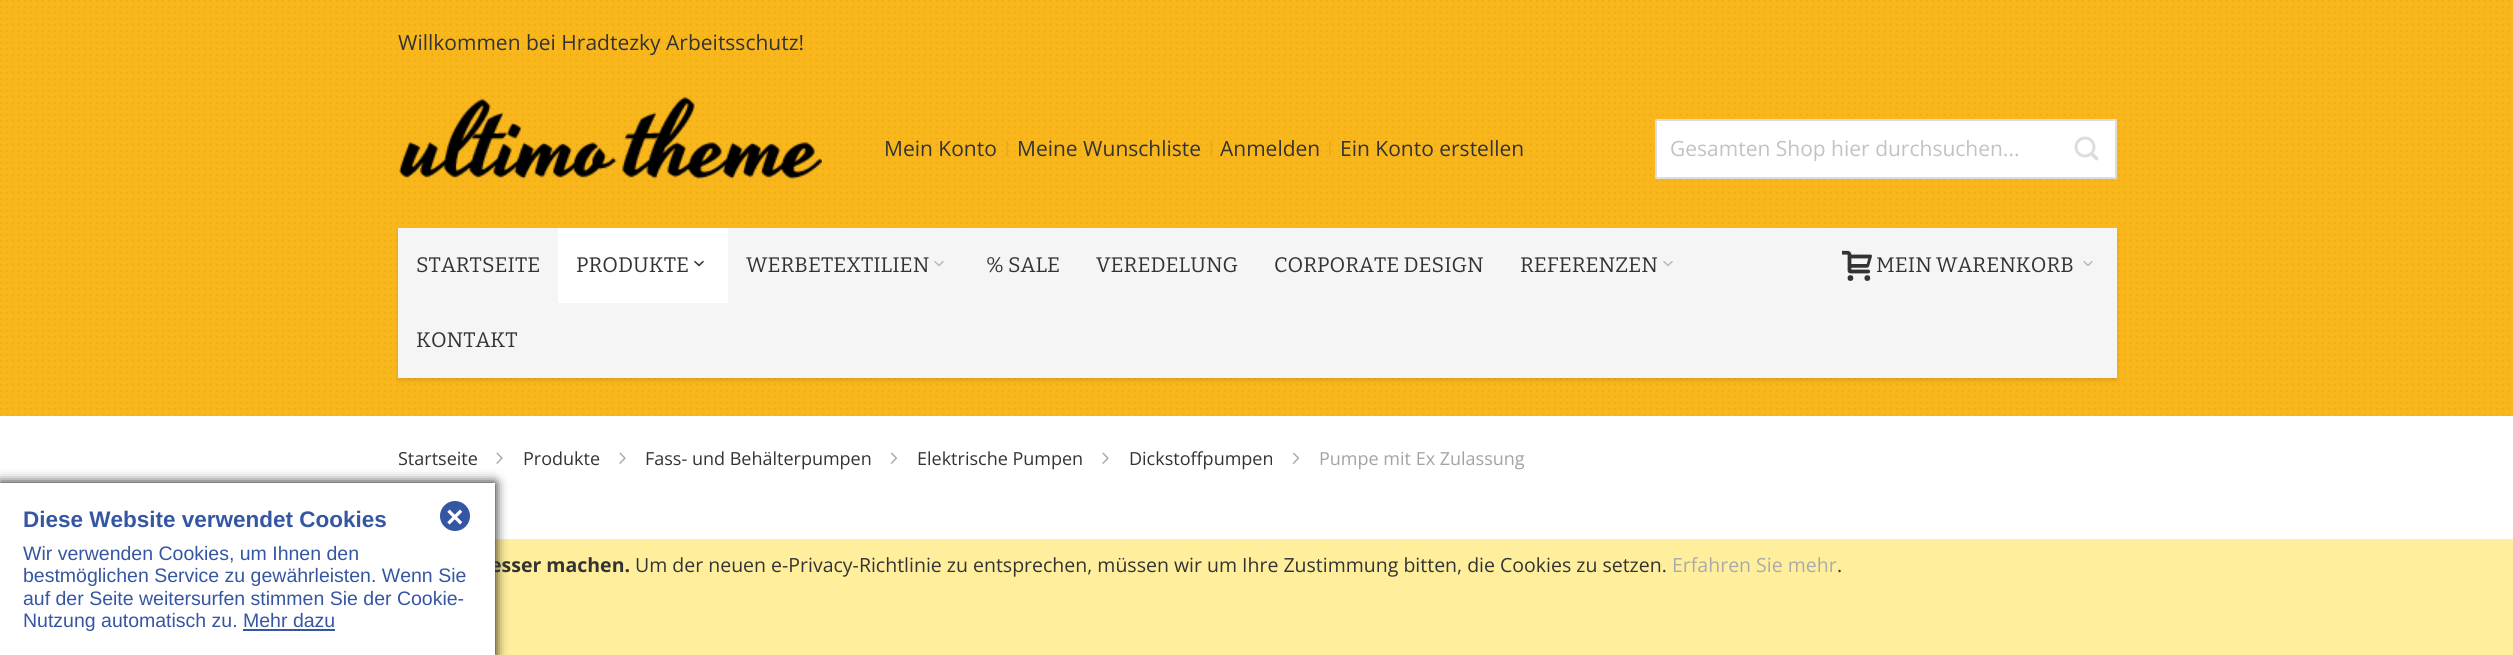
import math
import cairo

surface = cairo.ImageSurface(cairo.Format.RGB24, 2513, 655)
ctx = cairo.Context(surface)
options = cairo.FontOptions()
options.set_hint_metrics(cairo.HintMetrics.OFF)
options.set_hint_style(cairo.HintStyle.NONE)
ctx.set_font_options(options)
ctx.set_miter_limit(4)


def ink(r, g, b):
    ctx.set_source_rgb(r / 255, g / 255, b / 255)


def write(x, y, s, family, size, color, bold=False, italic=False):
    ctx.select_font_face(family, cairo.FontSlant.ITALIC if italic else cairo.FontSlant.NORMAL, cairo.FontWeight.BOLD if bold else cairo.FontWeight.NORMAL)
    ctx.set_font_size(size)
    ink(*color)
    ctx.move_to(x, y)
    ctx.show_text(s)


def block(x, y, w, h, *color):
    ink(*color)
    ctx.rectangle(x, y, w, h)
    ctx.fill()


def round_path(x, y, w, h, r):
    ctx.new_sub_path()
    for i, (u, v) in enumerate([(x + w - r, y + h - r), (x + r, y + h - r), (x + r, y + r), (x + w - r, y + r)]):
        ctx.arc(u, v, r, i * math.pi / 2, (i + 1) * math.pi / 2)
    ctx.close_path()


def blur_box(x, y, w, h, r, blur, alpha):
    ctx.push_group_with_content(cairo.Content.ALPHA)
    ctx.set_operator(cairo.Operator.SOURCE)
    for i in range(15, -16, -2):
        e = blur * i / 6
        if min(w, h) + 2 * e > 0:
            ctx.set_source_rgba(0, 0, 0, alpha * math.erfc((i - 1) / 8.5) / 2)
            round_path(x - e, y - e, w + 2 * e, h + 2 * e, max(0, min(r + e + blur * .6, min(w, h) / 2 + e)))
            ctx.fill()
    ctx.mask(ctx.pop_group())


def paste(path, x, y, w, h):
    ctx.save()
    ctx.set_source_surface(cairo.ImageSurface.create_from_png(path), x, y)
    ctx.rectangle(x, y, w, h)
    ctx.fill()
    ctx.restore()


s1 = dict(family="Open Sans", size=21, color=(51, 51, 51))
s2 = dict(family="Open Sans", size=21, color=(194, 194, 194))
s3 = dict(family="Bitter Thin", size=21, color=(51, 51, 51))
s4 = dict(family="Open Sans", size=18, color=(51, 51, 51))
s5 = dict(family="Open Sans", size=18, color=(163, 163, 163))
s6 = dict(family="Open Sans", size=19.5, color=(51, 51, 51), bold=True)
s7 = dict(family="Liberation Sans", size=22.5, color=(53, 86, 162), bold=True)
s8 = dict(family="Liberation Sans", size=30, color=(255, 255, 255), bold=True)
s9 = dict(family="Liberation Sans", size=19.5, color=(53, 86, 162))
s10 = dict(family="Open Sans", size=19.5, color=(51, 51, 51))
s11 = dict(family="Open Sans", size=19.5, color=(170, 170, 170))

ink(255, 255, 255)
ctx.paint()
block(0, 0, 2513, 416, 250, 183, 28)
paste("pic1.png", 0, 0, 2510, 415)
write(398, 50, "Willkommen bei Hradtezky Arbeitsschutz!", **s1)
paste("pic2.png", 398, 97, 424, 82)
write(884, 156, "Mein Konto", **s1)
paste("pic3.png", 1006, 141, 2, 15)
write(1017, 156, "Meine Wunschliste", **s1)
paste("pic3.png", 1210, 141, 2, 15)
write(1220, 156, "Anmelden", **s1)
paste("pic4.png", 1329, 141, 2, 15)
write(1340, 156, "Ein Konto erstellen", **s1)
ink(255, 255, 255)
round_path(1656, 120, 460, 58, 0.5)
ctx.fill_preserve()
ink(221, 221, 221)
ctx.stroke()
write(1670, 156, "Gesamten Shop hier durchsuchen...", **s2)
paste("pic5.png", 2074, 136, 25, 25)
ink(0, 0, 0)
blur_box(398, 231, 1719, 150, 0, 2, 0.1)
block(398, 228, 1719, 150, 245, 245, 245)
write(416, 272, "STARTSEITE", **s3)
block(558, 228, 170, 75, 255, 255, 255)
write(576, 272, "PRODUKTE", **s3)
paste("pic6.png", 694, 260, 10, 7)
write(746, 272, "WERBETEXTILIEN", **s3)
paste("pic7.png", 934, 261, 10, 6)
write(986, 272, "% SALE", **s3)
write(1096, 272, "VEREDELUNG", **s3)
write(1274, 272, "CORPORATE DESIGN", **s3)
write(1520, 272, "REFERENZEN", **s3)
paste("pic7.png", 1663, 261, 10, 6)
write(416, 347, "KONTAKT", **s3)
paste("pic8.png", 1842, 250, 30, 31)
write(1876, 272, "MEIN WARENKORB", **s3)
paste("pic7.png", 2083, 261, 10, 6)
write(398, 465, "Startseite", **s4)
paste("pic9.png", 496, 452, 7, 12)
write(523, 465, "Produkte", **s4)
paste("pic9.png", 619, 452, 7, 12)
write(645, 465, "Fass- und Behälterpumpen", **s4)
paste("pic10.png", 890, 452, 8, 12)
write(917, 465, "Elektrische Pumpen", **s4)
paste("pic9.png", 1102, 452, 7, 12)
write(1129, 465, "Dickstoffpumpen", **s4)
paste("pic10.png", 1292, 452, 8, 12)
write(1319, 465, "Pumpe mit Ex Zulassung", **s5)
block(495, 539, 2018, 116, 255, 238, 156)
ink(0, 0, 0)
blur_box(0, 483, 495, 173, 0, 6, 1)
write(490, 572, "esser machen.", **s6)
block(0, 483, 495, 172, 255, 255, 255)
write(23, 527, "Diese Website verwendet Cookies", **s7)
ctx.new_path()
ctx.arc(455, 516, 15, 0, 2 * math.pi)
ctx.fill()
write(446, 527, "×", **s8)
write(23, 560, "Wir verwenden Cookies, um Ihnen den", **s9)
write(23, 582, "bestmöglichen Service zu gewährleisten. Wenn Sie", **s9)
write(23, 605, "auf der Seite weitersurfen stimmen Sie der Cookie-", **s9)
write(23, 627, "Nutzung automatisch zu. Mehr dazu", **s9)
block(243, 629, 92, 2, 53, 86, 162)
write(635, 572, "Um der neuen e-Privacy-Richtlinie zu entsprechen, müssen wir um Ihre Zustimmung bitten, die Cookies zu setzen.", **s10)
write(1672, 572, "Erfahren Sie mehr", **s11)
write(1837, 572, ".", **s10)
surface.write_to_png("screenshot.png")
